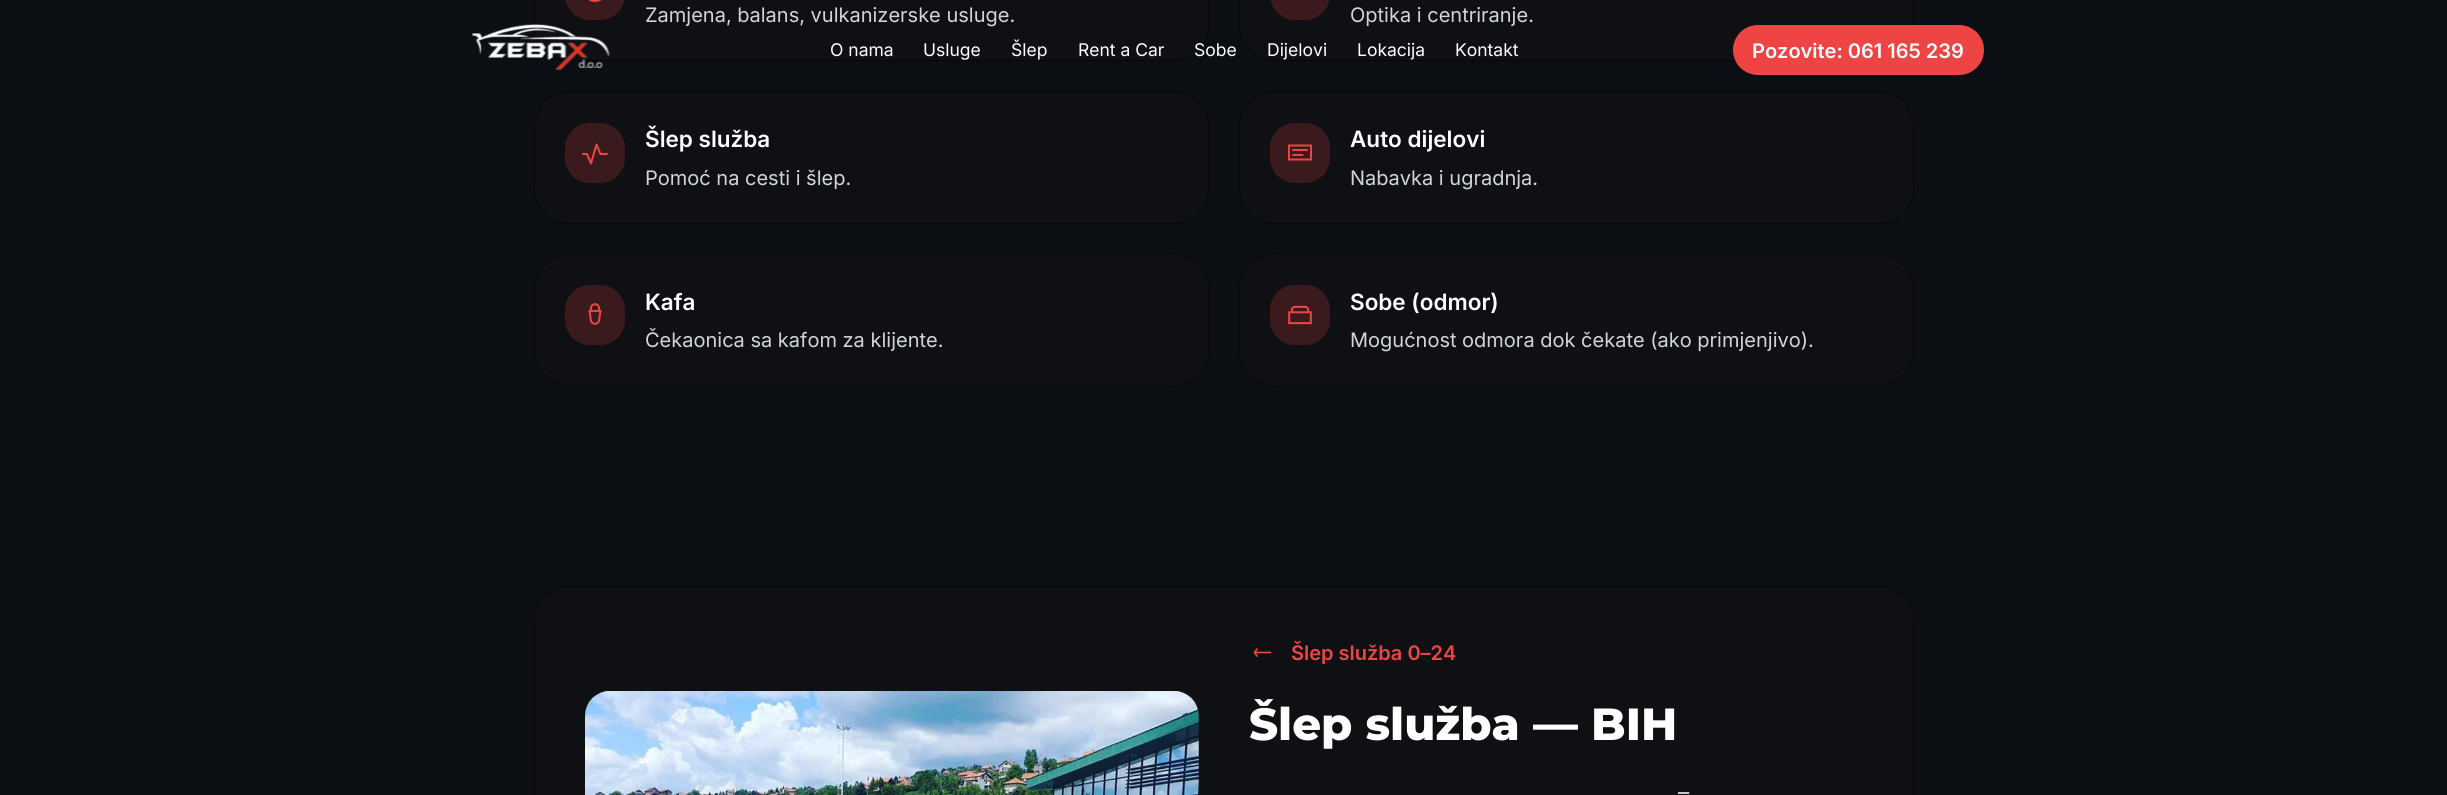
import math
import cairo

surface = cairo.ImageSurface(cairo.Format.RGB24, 2447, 795)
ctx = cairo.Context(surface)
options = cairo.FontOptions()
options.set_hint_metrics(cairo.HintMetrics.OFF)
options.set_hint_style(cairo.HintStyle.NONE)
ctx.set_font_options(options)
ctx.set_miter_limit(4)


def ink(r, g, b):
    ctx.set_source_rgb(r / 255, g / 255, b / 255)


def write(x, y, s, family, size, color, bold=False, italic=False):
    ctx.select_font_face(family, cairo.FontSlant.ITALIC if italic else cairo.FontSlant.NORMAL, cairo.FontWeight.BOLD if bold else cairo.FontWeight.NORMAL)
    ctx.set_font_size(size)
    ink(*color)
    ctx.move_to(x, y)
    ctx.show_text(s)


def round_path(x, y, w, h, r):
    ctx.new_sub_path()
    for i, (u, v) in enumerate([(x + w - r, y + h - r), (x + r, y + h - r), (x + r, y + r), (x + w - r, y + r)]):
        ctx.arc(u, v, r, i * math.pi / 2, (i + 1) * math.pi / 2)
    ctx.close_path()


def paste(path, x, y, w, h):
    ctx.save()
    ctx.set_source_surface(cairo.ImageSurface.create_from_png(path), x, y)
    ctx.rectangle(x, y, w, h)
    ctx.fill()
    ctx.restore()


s1 = dict(family="Inter", size=20, color=(209, 213, 219))
s2 = dict(family="Inter SemiBold", size=22.5, color=(255, 255, 255))
s3 = dict(family="Inter", size=17.5, color=(255, 255, 255))
s4 = dict(family="Inter SemiBold", size=20, color=(255, 255, 255))
s5 = dict(family="Inter SemiBold", size=20, color=(239, 68, 68))
s6 = dict(family="Montserrat ExtraBold", size=45, color=(255, 255, 255))
s7 = dict(family="Inter", size=22.5, color=(209, 213, 219))

ink(11, 15, 20)
ctx.paint()
ink(14, 16, 20)
round_path(534.5, -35.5, 674, 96, 34.5)
ctx.fill_preserve()
ink(6, 6, 8)
ctx.set_line_width(1)
ctx.stroke()
ink(59, 26, 30)
round_path(565, -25, 60, 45, 25)
ctx.fill()
ctx.arc(595, -10, 11, 0, 2 * math.pi)
ink(239, 68, 68)
ctx.set_line_width(2)
ctx.stroke()
write(645, 22, "Zamjena, balans, vulkanizerske usluge.", **s1)
ink(14, 16, 20)
round_path(1239.5, -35.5, 674, 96, 34.5)
ctx.fill_preserve()
ink(6, 6, 8)
ctx.set_line_width(1)
ctx.stroke()
ink(59, 26, 30)
round_path(1270, -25, 60, 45, 25)
ctx.fill()
write(1350, 22, "Optika i centriranje.", **s1)
ink(14, 16, 20)
round_path(534.5, 91.5, 674, 132, 34.5)
ctx.fill_preserve()
ink(6, 6, 8)
ctx.stroke()
ink(59, 26, 30)
round_path(565, 123, 60, 60, 25)
ctx.fill()
ctx.new_path()
ctx.move_to(583, 154)
ctx.line_to(587, 154)
ctx.line_to(591, 163.5)
ctx.line_to(596.5, 144.5)
ctx.line_to(600.5, 154)
ctx.line_to(607, 154)
ink(239, 68, 68)
ctx.set_line_width(2)
ctx.set_line_cap(cairo.LineCap.ROUND)
ctx.set_line_join(cairo.LineJoin.ROUND)
ctx.stroke()
write(645, 147, "Šlep služba", **s2)
write(645, 185, "Pomoć na cesti i šlep.", **s1)
ink(14, 16, 20)
round_path(1239.5, 91.5, 674, 132, 34.5)
ctx.fill_preserve()
ink(6, 6, 8)
ctx.set_line_width(1)
ctx.set_line_cap(cairo.LineCap.BUTT)
ctx.set_line_join(cairo.LineJoin.MITER)
ctx.stroke()
ink(59, 26, 30)
round_path(1270, 123, 60, 60, 25)
ctx.fill()
ctx.new_path()
ctx.move_to(1289, 145.5)
ctx.line_to(1311, 145.5)
ctx.line_to(1311, 159.5)
ctx.line_to(1289, 159.5)
ctx.close_path()
ink(239, 68, 68)
ctx.set_line_width(2)
ctx.stroke()
ctx.new_path()
ctx.move_to(1293, 150)
ctx.line_to(1307, 150)
ctx.move_to(1293, 155)
ctx.line_to(1302.5, 155)
ctx.set_line_cap(cairo.LineCap.ROUND)
ctx.stroke()
write(1350, 147, "Auto dijelovi", **s2)
write(1350, 185, "Nabavka i ugradnja.", **s1)
ink(14, 16, 20)
round_path(534.5, 254.5, 674, 131, 34.5)
ctx.fill_preserve()
ink(6, 6, 8)
ctx.set_line_width(1)
ctx.set_line_cap(cairo.LineCap.BUTT)
ctx.stroke()
ink(59, 26, 30)
round_path(565, 285, 60, 60, 25)
ctx.fill()
paste("pic1.png", 588, 303, 14, 22)
write(645, 310, "Kafa", **s2)
write(645, 347, "Čekaonica sa kafom za klijente.", **s1)
ink(14, 16, 20)
round_path(1239.5, 254.5, 674, 131, 34.5)
ctx.fill_preserve()
ink(6, 6, 8)
ctx.stroke()
ink(59, 26, 30)
round_path(1270, 285, 60, 60, 25)
ctx.fill()
paste("pic2.png", 1288, 305, 24, 20)
write(1350, 310, "Sobe (odmor)", **s2)
write(1350, 347, "Mogućnost odmora dok čekate (ako primjenjivo).", **s1)
paste("pic3.png", 471, 24, 139, 47)
write(830, 56, "O nama", **s3)
write(923, 56, "Usluge", **s3)
write(1011, 56, "Šlep", **s3)
write(1078, 56, "Rent a Car", **s3)
write(1194, 56, "Sobe", **s3)
write(1267, 56, "Dijelovi", **s3)
write(1357, 56, "Lokacija", **s3)
write(1455, 56, "Kontakt", **s3)
ink(239, 68, 68)
round_path(1733, 25, 251, 50, 25)
ctx.fill()
write(1752, 58, "Pozovite: 061 165 239", **s4)
ink(14, 16, 20)
round_path(534.5, 586.5, 1379, 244, 34.5)
ctx.fill_preserve()
ink(6, 6, 8)
ctx.stroke()
paste("pic4.png", 585, 691, 614, 104)
ctx.new_path()
ctx.move_to(1254.5, 652.5)
ctx.line_to(1270.5, 652.5)
ctx.move_to(1257, 649)
ctx.line_to(1254.5, 652.5)
ctx.line_to(1257, 656)
ink(239, 68, 68)
ctx.set_line_width(1.7)
ctx.set_line_cap(cairo.LineCap.ROUND)
ctx.set_line_join(cairo.LineJoin.ROUND)
ctx.stroke()
write(1291, 660, "Šlep služba 0–24", **s5)
write(1249, 740, "Šlep služba — BIH", **s6)
write(1678, 800, "–", **s7)
surface.write_to_png("screenshot.png")
